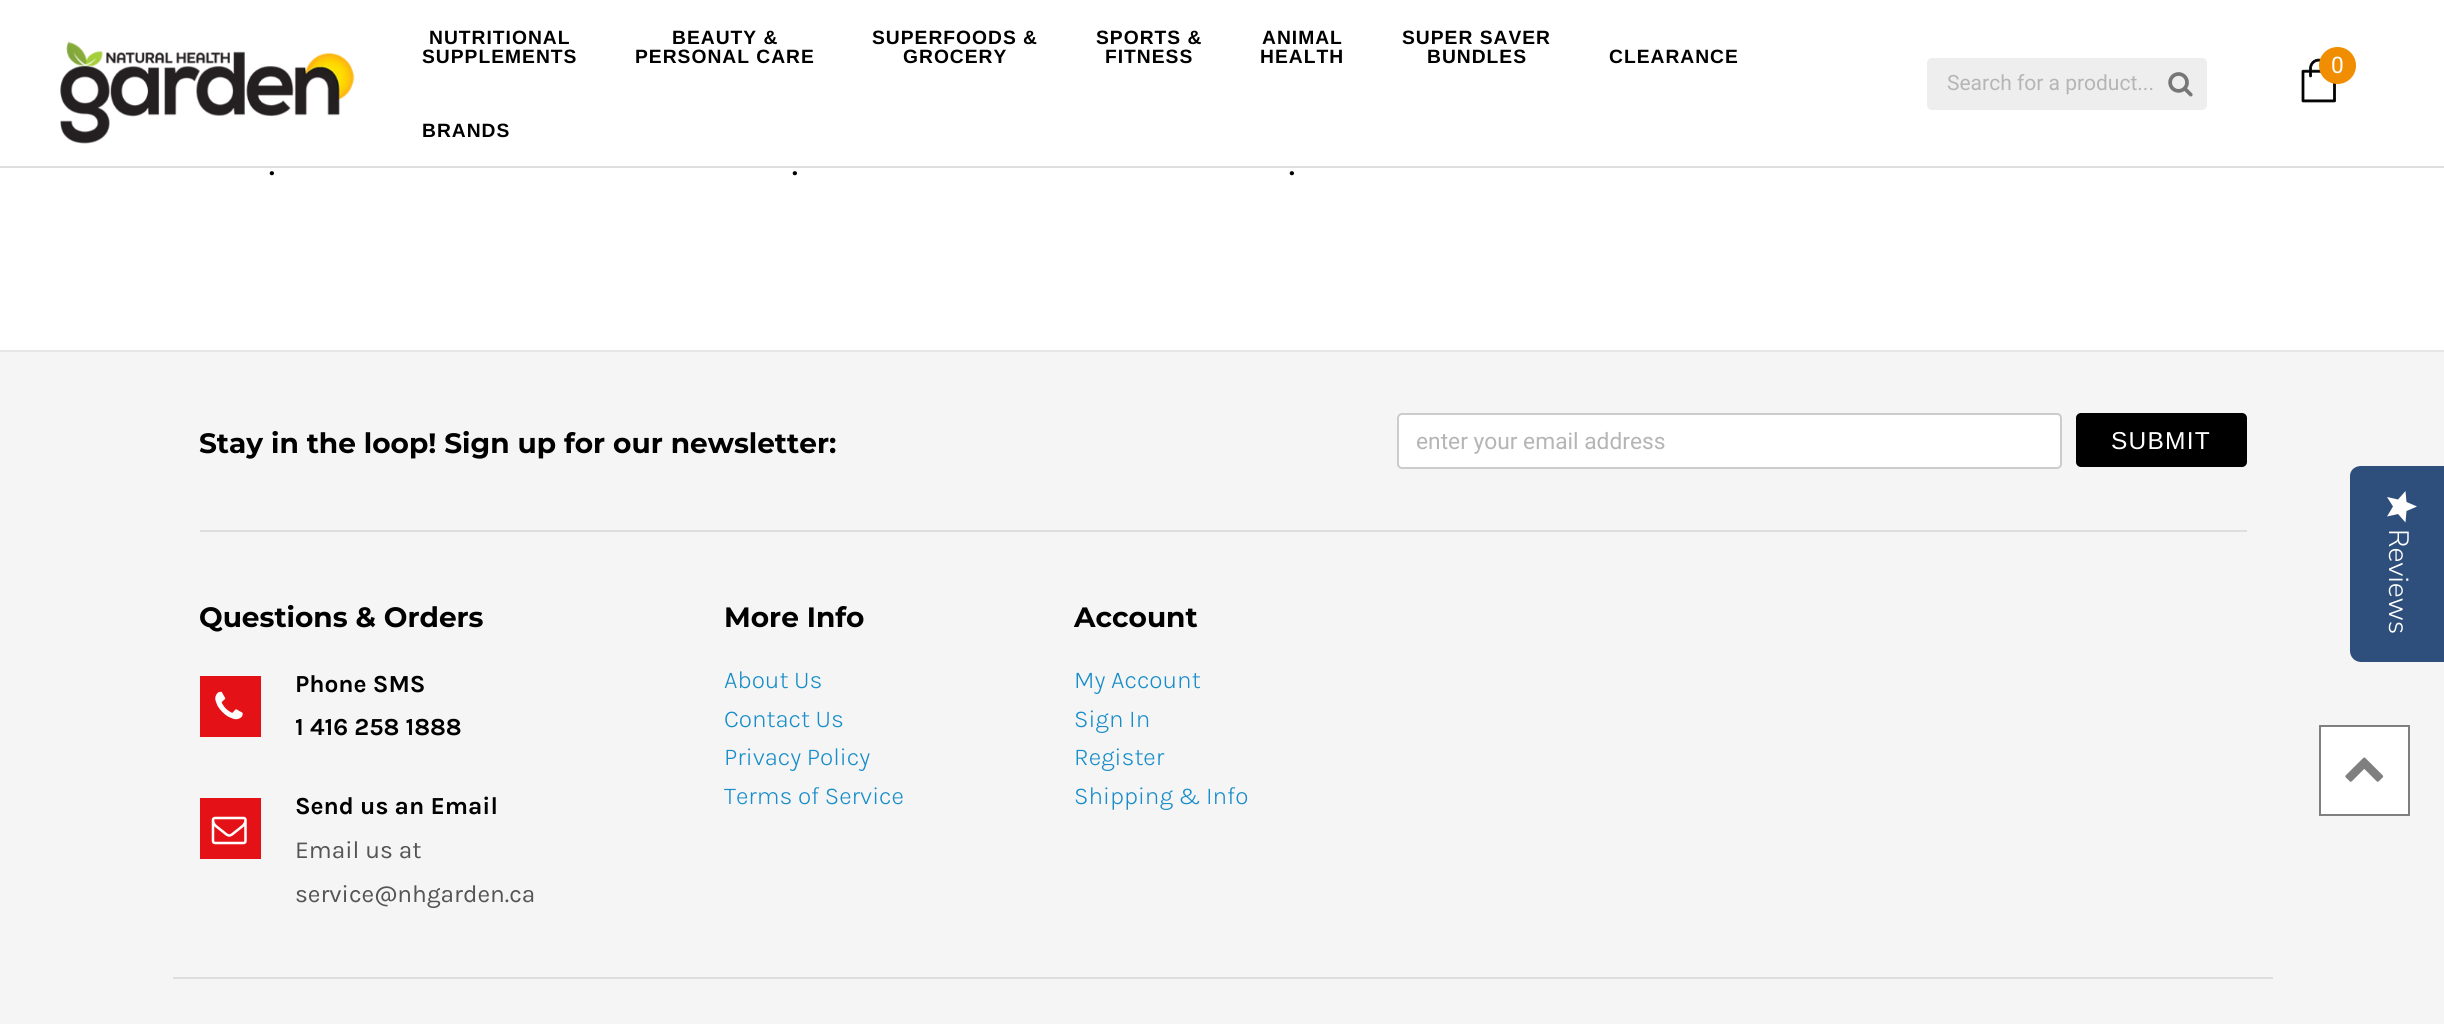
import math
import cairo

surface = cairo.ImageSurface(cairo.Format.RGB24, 2444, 1024)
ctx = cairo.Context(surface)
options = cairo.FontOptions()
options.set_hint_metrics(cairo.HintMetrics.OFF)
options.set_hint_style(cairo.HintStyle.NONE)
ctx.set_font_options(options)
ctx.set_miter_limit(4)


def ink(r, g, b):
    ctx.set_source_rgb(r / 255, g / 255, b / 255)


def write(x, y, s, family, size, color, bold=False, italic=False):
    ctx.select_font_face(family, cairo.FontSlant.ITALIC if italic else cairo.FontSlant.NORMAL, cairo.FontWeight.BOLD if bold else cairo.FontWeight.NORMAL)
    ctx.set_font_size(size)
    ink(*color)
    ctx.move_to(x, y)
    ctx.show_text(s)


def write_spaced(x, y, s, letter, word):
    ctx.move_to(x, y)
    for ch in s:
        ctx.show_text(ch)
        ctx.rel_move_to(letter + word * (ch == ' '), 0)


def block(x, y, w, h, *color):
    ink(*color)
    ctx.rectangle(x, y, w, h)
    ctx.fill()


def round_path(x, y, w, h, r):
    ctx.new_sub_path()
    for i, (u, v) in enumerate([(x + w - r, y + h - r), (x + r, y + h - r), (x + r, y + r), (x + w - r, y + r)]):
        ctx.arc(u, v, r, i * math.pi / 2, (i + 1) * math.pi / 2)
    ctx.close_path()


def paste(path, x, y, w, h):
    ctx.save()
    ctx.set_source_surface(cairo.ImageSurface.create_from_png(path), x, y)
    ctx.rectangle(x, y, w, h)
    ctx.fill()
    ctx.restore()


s1 = dict(family="Roboto", size=22.75, color=(255, 255, 255))
s2 = dict(family="Roboto", size=21, color=(181, 181, 181))
s3 = dict(family="Karla SemiBold", size=28, color=(0, 0, 0))
s4 = dict(family="Montserrat", size=28, color=(0, 0, 0), bold=True)
s5 = dict(family="Roboto", size=22.75, color=(181, 181, 181))
s6 = dict(family="Karla", size=24.5, color=(0, 0, 0), bold=True)
s7 = dict(family="Karla", size=24.5, color=(85, 85, 85))
s8 = dict(family="Karla Light", size=24.5, color=(23, 141, 201))
s9 = dict(family="Nunito Sans Light", size=28, color=(255, 255, 255))

ink(255, 255, 255)
ctx.paint()
block(0, 166, 2444, 2, 222, 222, 222)
paste("pic1.png", 60, 41, 295, 103)
ctx.select_font_face("Liberation Sans", cairo.FontSlant.NORMAL, cairo.FontWeight.BOLD)
ctx.set_font_size(19.25)
ink(0, 0, 0)
write_spaced(429, 44, "NUTRITIONAL", 1, 0)
write_spaced(422, 63, "SUPPLEMENTS", 1, 0)
write_spaced(672, 44, "BEAUTY &", 1, 0)
write_spaced(635, 63, "PERSONAL CARE", 1, 0)
write_spaced(872, 44, "SUPERFOODS &", 1, 0)
write_spaced(903, 63, "GROCERY", 1, 0)
write_spaced(1096, 44, "SPORTS &", 1, 0)
write_spaced(1105, 63, "FITNESS", 1, 0)
write_spaced(1262, 44, "ANIMAL", 1, 0)
write_spaced(1260, 63, "HEALTH", 1, 0)
write_spaced(1402, 44, "SUPER SAVER", 1, 0)
write_spaced(1427, 63, "BUNDLES", 1, 0)
write_spaced(1609, 63, "CLEARANCE", 1, 0)
write_spaced(422, 137, "BRANDS", 1, 0)
paste("pic2.png", 2301, 58, 35, 45)
ink(240, 141, 0)
ctx.arc(2337.5, 65.5, 17.5, 0, 2 * math.pi)
ctx.fill_preserve()
ctx.stroke()
write(2331, 73, "0", **s1)
ink(238, 238, 238)
round_path(1928, 59, 278, 50, 4)
ctx.fill_preserve()
ctx.stroke()
write(1947, 90, "Search for a product...", **s2)
paste("pic3.png", 2168, 72, 25, 25)
write(269, 175, ".", **s3)
write(792, 175, ".", **s3)
write(1289, 175, ".", **s3)
block(0, 350, 2444, 2, 230, 230, 230)
block(0, 352, 2444, 672, 245, 245, 245)
write(199, 453, "Stay in the loop! Sign up for our newsletter:", **s4)
ink(255, 255, 255)
round_path(1398, 414, 663, 54, 4)
ctx.fill_preserve()
ink(204, 204, 204)
ctx.stroke()
write(1416, 449, "enter your email address", **s5)
ink(0, 0, 0)
round_path(2076, 413, 171, 54, 5)
ctx.fill()
ctx.select_font_face("Liberation Sans")
ctx.set_font_size(24.5)
ink(255, 255, 255)
write_spaced(2111, 449, "SUBMIT", 1.25, 0)
block(200, 530, 2047, 2, 222, 222, 222)
block(173, 977, 2100, 2, 222, 222, 222)
write(199, 627, "Questions & Orders", **s4)
block(200, 676, 61, 61, 228, 18, 23)
paste("pic4.png", 215, 691, 28, 29)
write(295, 692, "Phone SMS", **s6)
write(295, 735, "1 416 258 1888", **s6)
block(200, 798, 61, 61, 228, 18, 23)
paste("pic5.png", 211, 816, 36, 29)
write(295, 814, "Send us an Email", **s6)
write(295, 858, "Email us at", **s7)
write(295, 902, "service@nhgarden.ca", **s7)
write(724, 627, "More Info", **s4)
write(724, 688, "About Us", **s8)
write(724, 727, "Contact Us", **s8)
write(724, 765, "Privacy Policy", **s8)
write(724, 804, "Terms of Service", **s8)
write(1074, 627, "Account", **s4)
write(1074, 688, "My Account", **s8)
write(1074, 727, "Sign In", **s8)
write(1074, 765, "Register", **s8)
write(1074, 804, "Shipping & Info", **s8)
ink(255, 255, 255)
ctx.rectangle(2320, 726, 89, 89)
ctx.fill_preserve()
ink(127, 127, 127)
ctx.stroke()
paste("pic6.png", 2345, 757, 39, 25)
ink(46, 79, 124)
ctx.new_path()
ctx.move_to(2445, 466)
ctx.line_to(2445, 662)
ctx.line_to(2361, 662)
ctx.curve_to(2355, 662, 2350, 657, 2350, 651)
ctx.line_to(2350, 476)
ctx.curve_to(2350, 470, 2355, 466, 2361, 466)
ctx.close_path()
ctx.fill()
gradient = cairo.LinearGradient(2417, 491, 2417, 522)
gradient.add_color_stop_rgba(1, 1, 1, 1, 1)
gradient.add_color_stop_rgba(1, 0.918, 0.918, 0.918, 1)
ctx.set_source(gradient)
ctx.new_path()
ctx.move_to(2393, 506.5)
ctx.line_to(2387, 516.5)
ctx.line_to(2398, 514)
ctx.line_to(2405.5, 522.5)
ctx.line_to(2406.5, 511)
ctx.line_to(2417, 506.5)
ctx.line_to(2406.5, 502)
ctx.line_to(2405.5, 491)
ctx.line_to(2398, 499.5)
ctx.line_to(2387, 497)
ctx.close_path()
ctx.fill()
ctx.save()
ctx.translate(2389, 529)
ctx.rotate(90 * math.pi / 180)
write(0, 0, "Reviews", **s9)
ctx.restore()
surface.write_to_png("screenshot.png")
